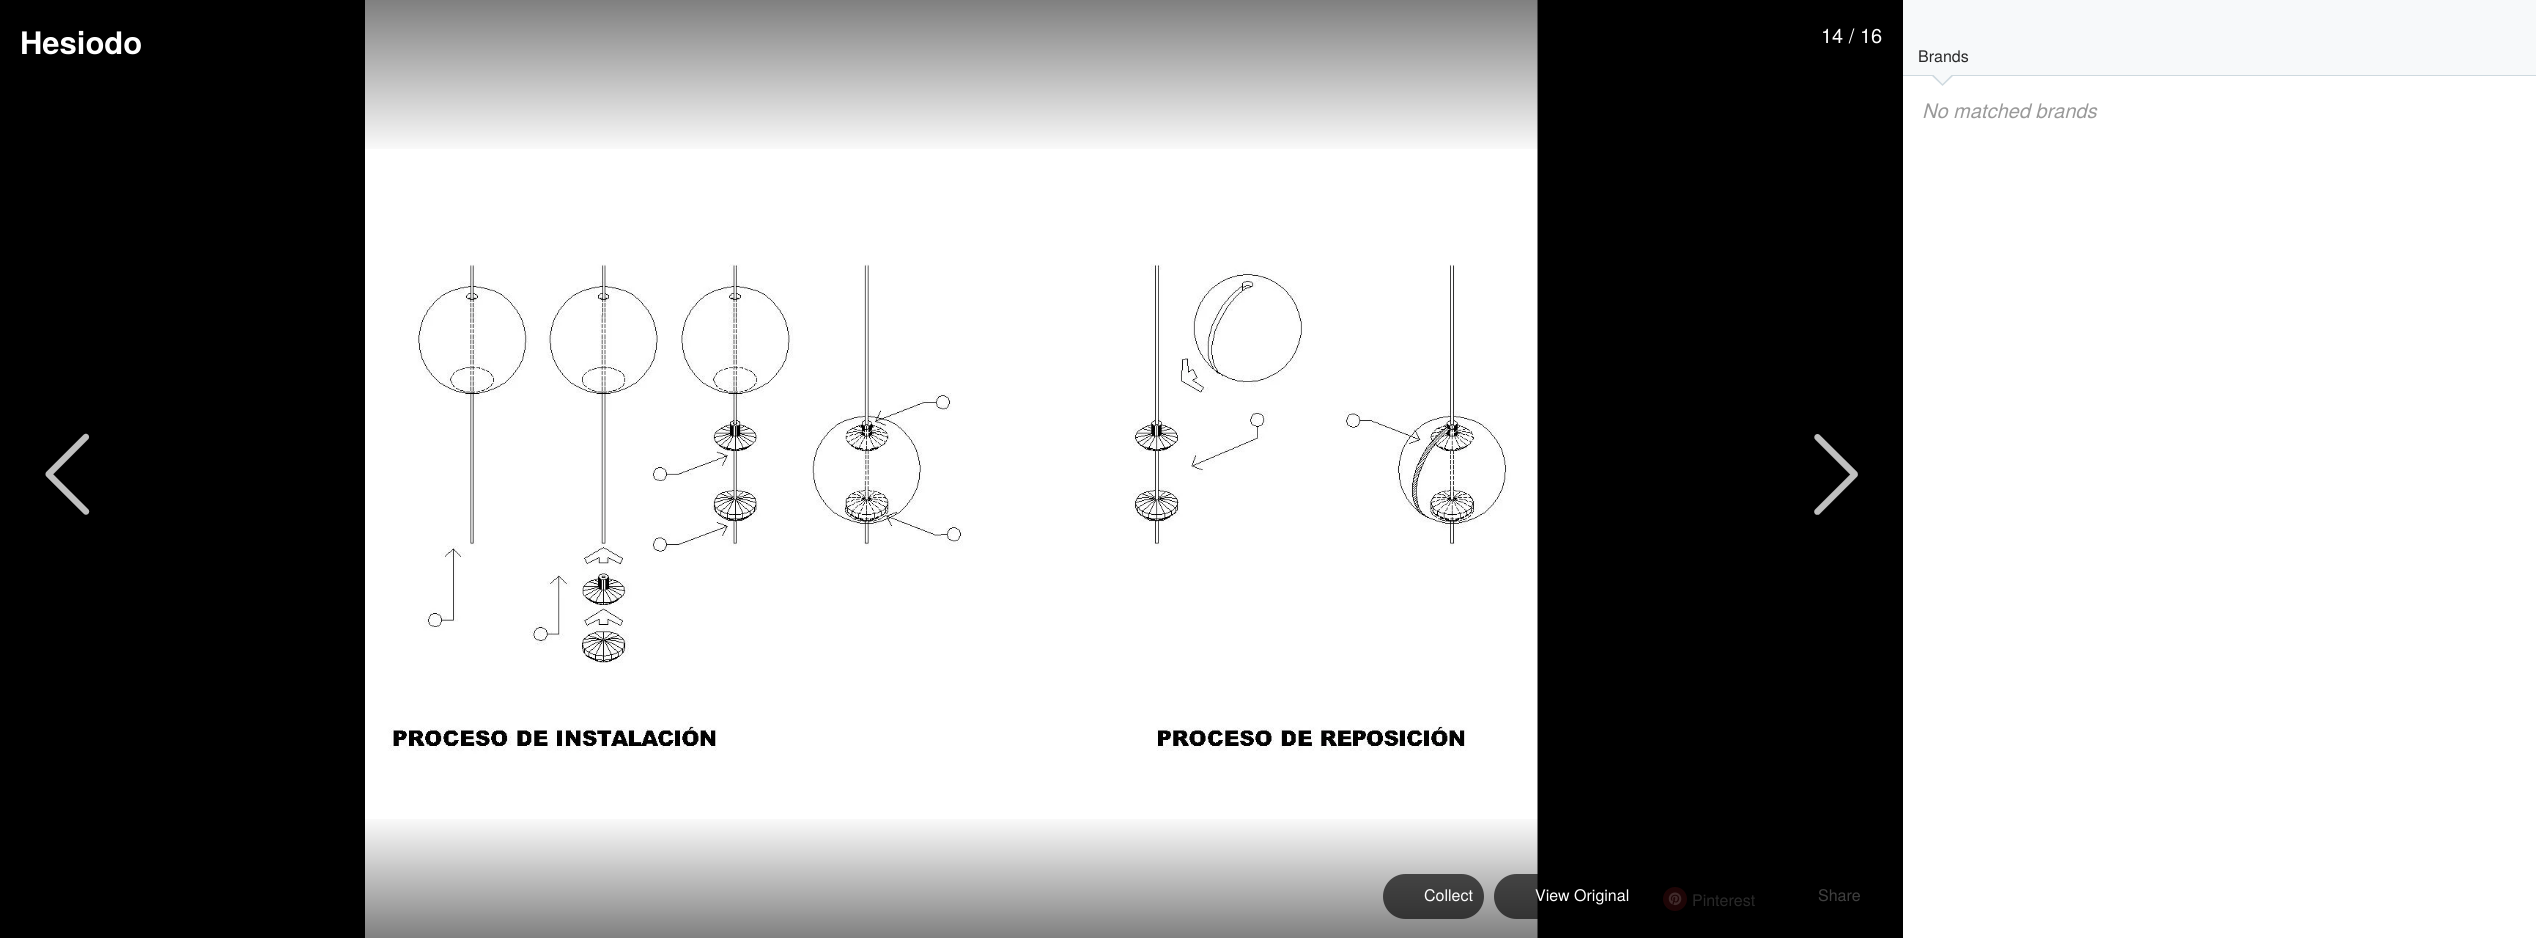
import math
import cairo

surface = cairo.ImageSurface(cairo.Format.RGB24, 2536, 938)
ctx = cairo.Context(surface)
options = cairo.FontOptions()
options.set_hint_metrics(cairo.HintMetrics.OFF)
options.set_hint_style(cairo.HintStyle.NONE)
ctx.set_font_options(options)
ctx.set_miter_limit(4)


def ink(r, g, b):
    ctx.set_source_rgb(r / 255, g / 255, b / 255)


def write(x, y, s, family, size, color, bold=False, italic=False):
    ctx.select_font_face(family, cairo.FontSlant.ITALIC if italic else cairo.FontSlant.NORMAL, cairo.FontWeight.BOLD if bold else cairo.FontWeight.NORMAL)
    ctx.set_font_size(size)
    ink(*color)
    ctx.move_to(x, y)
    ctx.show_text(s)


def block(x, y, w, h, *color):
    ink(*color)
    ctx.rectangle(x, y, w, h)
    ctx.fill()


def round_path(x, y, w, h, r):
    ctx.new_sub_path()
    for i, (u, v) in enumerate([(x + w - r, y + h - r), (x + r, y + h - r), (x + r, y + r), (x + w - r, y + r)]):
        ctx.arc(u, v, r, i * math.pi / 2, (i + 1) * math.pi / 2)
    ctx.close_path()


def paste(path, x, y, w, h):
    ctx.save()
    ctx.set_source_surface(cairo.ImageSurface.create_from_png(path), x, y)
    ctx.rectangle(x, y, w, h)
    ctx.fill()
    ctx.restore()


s1 = dict(family="TeX Gyre Heros", size=31, color=(255, 255, 255), bold=True)
s2 = dict(family="TeX Gyre Heros", size=20, color=(255, 255, 255))
s3 = dict(family="TeX Gyre Heros", size=16, color=(255, 255, 255))
s4 = dict(family="TeX Gyre Heros", size=16, color=(41, 41, 41))
s5 = dict(family="TeX Gyre Heros", size=16, color=(64, 64, 64))
s6 = dict(family="TeX Gyre Heros", size=20, color=(153, 153, 153), italic=True)

ink(255, 255, 255)
ctx.paint()
block(0, 0, 1903, 938, 0, 0, 0)
paste("pic1.png", 365, 0, 1173, 938)
write(20, 54, "Hesiodo", **s1)
gradient = cairo.LinearGradient(951, 0, 951, 156)
gradient.add_color_stop_rgba(0, 0, 0, 0, 0.5)
gradient.add_color_stop_rgba(1, 0, 0, 0, 0)
ctx.set_source(gradient)
ctx.rectangle(365, 0, 1173, 149)
ctx.fill()
write(1821, 43, "14 / 16", **s2)
paste("pic2.png", 45, 433, 45, 82)
paste("pic3.png", 1814, 434, 44, 81)
gradient = cairo.LinearGradient(951, 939, 951, 814)
gradient.add_color_stop_rgba(0, 0, 0, 0, 0.5)
gradient.add_color_stop_rgba(1, 0, 0, 0, 0)
ctx.set_source(gradient)
ctx.rectangle(365, 819, 1173, 119)
ctx.fill()
ctx.set_source_rgba(0, 0, 0, 0.65)
round_path(1383, 874, 101, 45, 22.5)
ctx.fill()
write(1424, 901, "Collect", **s3)
ctx.set_source_rgba(0, 0, 0, 0.65)
round_path(1494, 874, 147, 45, 22.5)
ctx.fill()
write(1535, 901, "View Original", **s3)
paste("pic4.png", 1663, 887, 24, 24)
write(1692, 906, "Pinterest", **s4)
write(1818, 901, "Share", **s5)
block(1903, 0, 633, 75, 247, 249, 250)
block(1903, 75, 633, 1, 206, 217, 223)
write(1918, 62, "Brands", **s4)
ink(206, 217, 223)
ctx.new_path()
ctx.move_to(1931, 75)
ctx.line_to(1954, 75)
ctx.line_to(1942.5, 86)
ctx.close_path()
ctx.fill()
ink(247, 249, 250)
ctx.new_path()
ctx.move_to(1932.5, 74)
ctx.line_to(1952.5, 74)
ctx.line_to(1942.5, 84)
ctx.close_path()
ctx.fill()
write(1922, 118, "No matched brands", **s6)
surface.write_to_png("screenshot.png")
